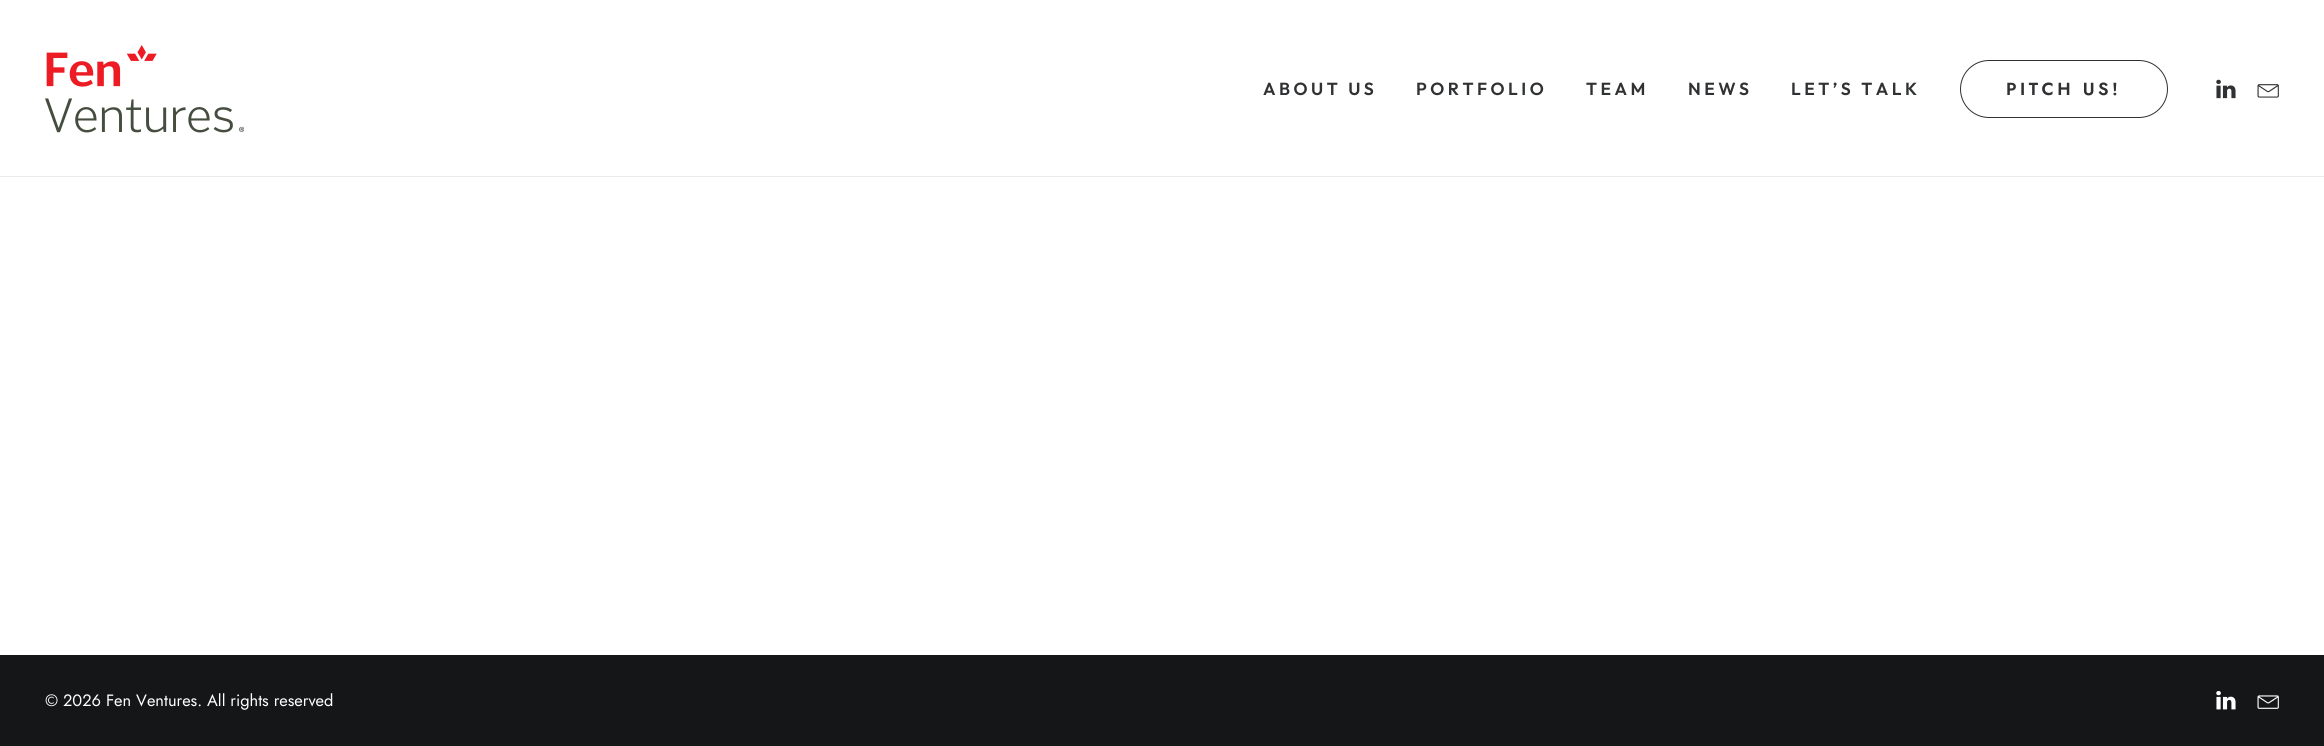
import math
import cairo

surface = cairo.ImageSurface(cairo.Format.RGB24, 2324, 746)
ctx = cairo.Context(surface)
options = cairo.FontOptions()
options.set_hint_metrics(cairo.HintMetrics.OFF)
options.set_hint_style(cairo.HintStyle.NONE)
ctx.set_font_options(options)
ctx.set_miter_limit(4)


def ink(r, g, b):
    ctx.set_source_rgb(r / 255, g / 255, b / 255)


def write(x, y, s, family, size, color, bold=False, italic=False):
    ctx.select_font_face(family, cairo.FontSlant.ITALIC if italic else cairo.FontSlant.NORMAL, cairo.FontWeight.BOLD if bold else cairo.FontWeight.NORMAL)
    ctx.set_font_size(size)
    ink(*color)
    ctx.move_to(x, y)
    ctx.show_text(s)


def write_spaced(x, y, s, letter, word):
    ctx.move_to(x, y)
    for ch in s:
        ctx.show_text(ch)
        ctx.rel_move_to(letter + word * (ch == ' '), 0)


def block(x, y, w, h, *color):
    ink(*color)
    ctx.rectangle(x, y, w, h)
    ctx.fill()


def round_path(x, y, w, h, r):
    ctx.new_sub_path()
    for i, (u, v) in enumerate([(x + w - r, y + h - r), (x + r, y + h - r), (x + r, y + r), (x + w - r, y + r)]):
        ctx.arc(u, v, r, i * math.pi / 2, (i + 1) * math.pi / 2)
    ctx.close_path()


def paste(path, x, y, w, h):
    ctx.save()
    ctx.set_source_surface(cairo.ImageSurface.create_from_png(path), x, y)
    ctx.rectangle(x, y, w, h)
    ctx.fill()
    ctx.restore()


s1 = dict(family="Jost", size=16.4, color=(255, 255, 255))

ink(20, 22, 24)
ctx.paint()
block(0, 0, 2324, 655, 255, 255, 255)
paste("pic1.png", 45, 45, 199, 88)
ctx.select_font_face("Outfit SemiBold")
ctx.set_font_size(17.5)
ink(48, 49, 51)
write_spaced(1263, 95, "ABOUT US", 3.5, 0)
write_spaced(1416, 95, "PORTFOLIO", 3.5, 0)
write_spaced(1586, 95, "TEAM", 3.5, 0)
write_spaced(1688, 95, "NEWS", 3.5, 0)
write_spaced(1791, 95, "LET’S TALK", 3.5, 0)
round_path(1960.5, 60.5, 207, 57, 28.5)
ctx.set_line_width(1)
ctx.stroke()
ctx.select_font_face("Jost SemiBold")
write_spaced(2006, 95, "PITCH US!", 3.5, 0)
paste("pic2.png", 2216, 79, 20, 20)
paste("pic3.png", 2257, 84, 22, 14)
block(0, 176, 2324, 1, 235, 235, 235)
write(45, 706, "© 2026 Fen Ventures. All rights reserved", **s1)
paste("pic4.png", 2216, 691, 20, 19)
paste("pic5.png", 2257, 695, 22, 14)
surface.write_to_png("screenshot.png")
